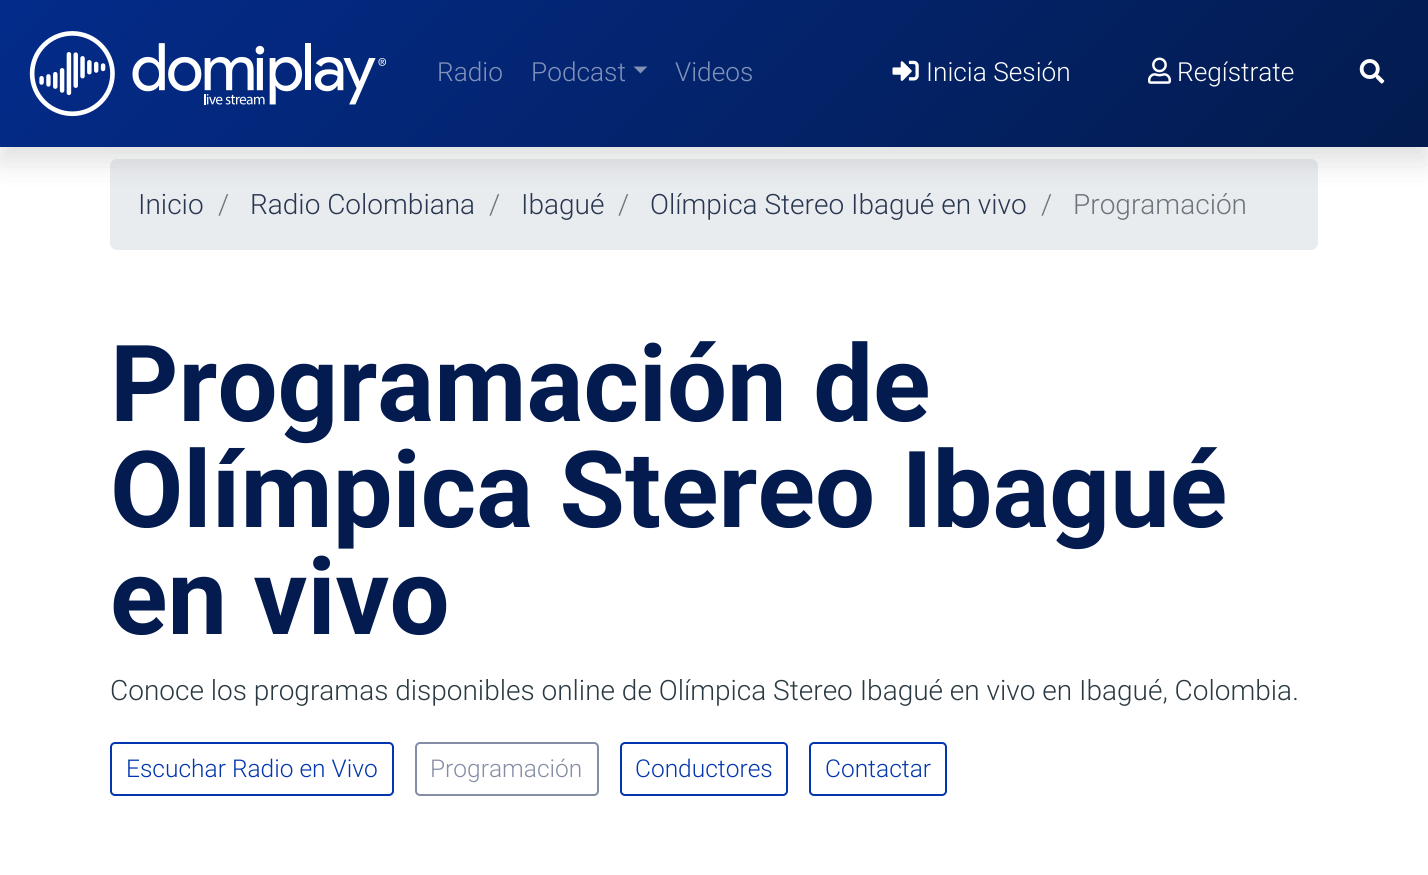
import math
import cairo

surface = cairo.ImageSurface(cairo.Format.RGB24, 1428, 875)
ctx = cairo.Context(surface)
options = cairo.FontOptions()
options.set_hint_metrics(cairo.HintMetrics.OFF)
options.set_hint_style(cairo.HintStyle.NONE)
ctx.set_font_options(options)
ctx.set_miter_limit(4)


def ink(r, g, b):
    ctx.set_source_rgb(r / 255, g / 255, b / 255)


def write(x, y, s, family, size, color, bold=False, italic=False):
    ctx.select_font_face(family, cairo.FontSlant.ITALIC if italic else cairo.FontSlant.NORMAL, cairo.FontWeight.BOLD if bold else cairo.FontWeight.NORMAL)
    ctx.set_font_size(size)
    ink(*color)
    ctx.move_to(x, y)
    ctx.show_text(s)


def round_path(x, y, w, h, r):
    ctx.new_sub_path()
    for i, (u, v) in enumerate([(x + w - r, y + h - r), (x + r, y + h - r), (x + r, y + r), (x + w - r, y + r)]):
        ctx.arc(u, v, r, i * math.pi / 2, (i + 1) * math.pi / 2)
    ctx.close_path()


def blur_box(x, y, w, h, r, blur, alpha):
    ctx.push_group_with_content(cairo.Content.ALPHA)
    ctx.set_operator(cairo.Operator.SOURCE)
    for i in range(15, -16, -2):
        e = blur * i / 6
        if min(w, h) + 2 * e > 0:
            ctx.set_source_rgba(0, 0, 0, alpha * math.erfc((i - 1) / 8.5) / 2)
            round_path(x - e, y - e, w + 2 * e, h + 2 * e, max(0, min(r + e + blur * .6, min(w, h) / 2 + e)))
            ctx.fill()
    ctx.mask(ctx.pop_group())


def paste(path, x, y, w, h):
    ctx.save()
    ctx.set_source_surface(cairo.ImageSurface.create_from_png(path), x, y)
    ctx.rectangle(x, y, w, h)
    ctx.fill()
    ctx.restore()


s1 = dict(family="Roboto Light", size=26.25, color=(129, 146, 186))
s2 = dict(family="Roboto Light", size=26.25, color=(255, 255, 255))
s3 = dict(family="Roboto Light", size=28, color=(40, 54, 80))
s4 = dict(family="Roboto Light", size=28, color=(108, 117, 125))
s5 = dict(family="Roboto", size=106.4, color=(3, 27, 78), bold=True)
s6 = dict(family="Roboto Light", size=28, color=(43, 58, 66))
s7 = dict(family="Roboto Light", size=24.5, color=(3, 54, 174))
s8 = dict(family="Roboto Light", size=24.5, color=(133, 141, 166))

ink(255, 255, 255)
ctx.paint()
ink(233, 236, 239)
round_path(110, 159, 1208, 91, 7)
ctx.fill()
ink(37, 40, 42)
blur_box(0, 14, 1428, 147, 0, 14, 0.15)
gradient = cairo.LinearGradient(320, -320, 1108, 467)
gradient.add_color_stop_rgba(0, 0.012, 0.169, 0.541, 1)
gradient.add_color_stop_rgba(1, 0.012, 0.106, 0.306, 1)
ctx.set_source(gradient)
ctx.rectangle(0, 0, 1428, 147)
ctx.fill()
paste("pic1.png", 29, 31, 357, 86)
write(437, 81, "Radio", **s1)
write(531, 81, "Podcast", **s1)
ink(129, 146, 183)
ctx.new_path()
ctx.move_to(633.5, 66.5)
ctx.line_to(647.5, 66.5)
ctx.line_to(640.5, 73.5)
ctx.close_path()
ctx.fill()
write(675, 81, "Videos", **s1)
paste("pic2.png", 892, 60, 27, 21)
write(926, 81, "Inicia Sesión", **s2)
paste("pic3.png", 1148, 57, 23, 27)
write(1177, 81, "Regístrate", **s2)
paste("pic4.png", 1359, 59, 26, 25)
write(138, 214, "Inicio", **s3)
write(218, 214, "/", **s4)
write(250, 214, "Radio Colombiana", **s3)
write(489, 214, "/", **s4)
write(521, 214, "Ibagué", **s3)
write(618, 214, "/", **s4)
write(650, 214, "Olímpica Stereo Ibagué en vivo", **s3)
write(1041, 214, "/", **s4)
write(1073, 214, "Programación", **s4)
write(110, 421, "Programación de", **s5)
write(110, 527, "Olímpica Stereo Ibagué", **s5)
write(110, 634, "en vivo", **s5)
write(110, 700, "Conoce los programas disponibles online de Olímpica Stereo Ibagué en vivo en Ibagué, Colombia.", **s6)
round_path(111, 743, 282, 52, 4)
ink(3, 54, 174)
ctx.stroke()
write(126, 777, "Escuchar Radio en Vivo", **s7)
round_path(416, 743, 182, 52, 4)
ink(133, 141, 166)
ctx.stroke()
write(430, 777, "Programación", **s8)
round_path(621, 743, 166, 52, 4)
ink(3, 54, 174)
ctx.stroke()
write(635, 777, "Conductores", **s7)
round_path(810, 743, 136, 52, 4)
ctx.stroke()
write(825, 777, "Contactar", **s7)
surface.write_to_png("screenshot.png")
